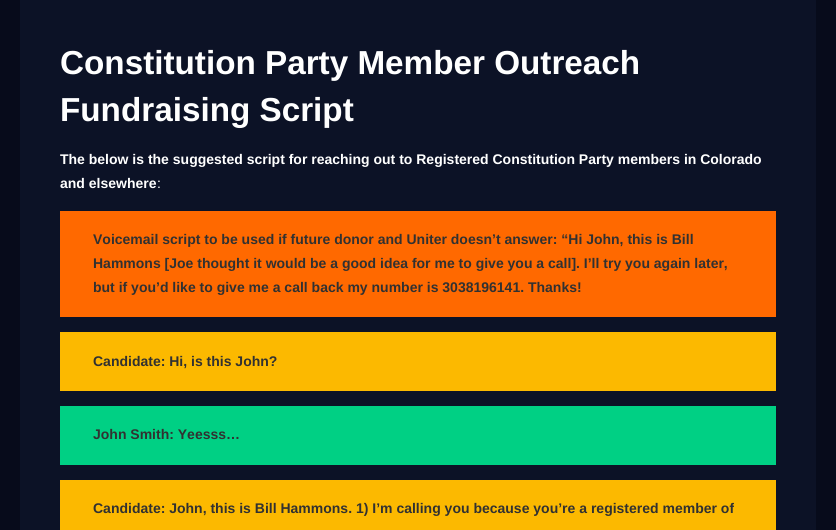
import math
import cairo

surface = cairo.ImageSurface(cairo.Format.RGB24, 836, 530)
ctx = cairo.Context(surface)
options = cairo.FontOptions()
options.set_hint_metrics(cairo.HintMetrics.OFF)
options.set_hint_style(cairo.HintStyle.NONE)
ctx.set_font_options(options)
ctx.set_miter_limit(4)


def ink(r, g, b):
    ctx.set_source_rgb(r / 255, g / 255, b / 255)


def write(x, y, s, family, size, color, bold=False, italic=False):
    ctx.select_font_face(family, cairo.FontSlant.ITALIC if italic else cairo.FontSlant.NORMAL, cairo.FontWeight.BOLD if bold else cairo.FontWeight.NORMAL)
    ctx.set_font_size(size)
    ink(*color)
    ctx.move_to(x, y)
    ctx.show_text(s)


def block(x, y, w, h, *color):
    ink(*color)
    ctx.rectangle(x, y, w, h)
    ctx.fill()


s1 = dict(family="Liberation Sans", size=33.25, color=(255, 255, 255), bold=True)
s2 = dict(family="Liberation Sans", size=14, color=(255, 255, 255), bold=True)
s3 = dict(family="Liberation Sans", size=14, color=(255, 255, 255))
s4 = dict(family="Liberation Sans", size=14, color=(49, 49, 49), bold=True)

ink(7, 11, 27)
ctx.paint()
block(20, 0, 796, 530, 12, 18, 38)
write(60, 74, "Constitution Party Member Outreach", **s1)
write(60, 121, "Fundraising Script", **s1)
write(60, 164, "The below is the suggested script for reaching out to Registered Constitution Party members in Colorado", **s2)
write(60, 188, "and elsewhere", **s2)
write(157, 188, ":", **s3)
block(60, 211, 716, 106, 255, 105, 0)
write(93, 244, "Voicemail script to be used if future donor and Uniter doesn’t answer: “Hi John, this is Bill", **s4)
write(93, 268, "Hammons [Joe thought it would be a good idea for me to give you a call]. I’ll try you again later,", **s4)
write(93, 292, "but if you’d like to give me a call back my number is 3038196141. Thanks!", **s4)
block(60, 332, 716, 59, 252, 185, 0)
write(93, 366, "Candidate: Hi, is this John?", **s4)
block(60, 406, 716, 59, 0, 208, 132)
write(93, 439, "John Smith: Yeesss…", **s4)
block(60, 480, 716, 50, 252, 185, 0)
write(93, 513, "Candidate: John, this is Bill Hammons. 1) I’m calling you because you’re a registered member of", **s4)
surface.write_to_png("screenshot.png")
